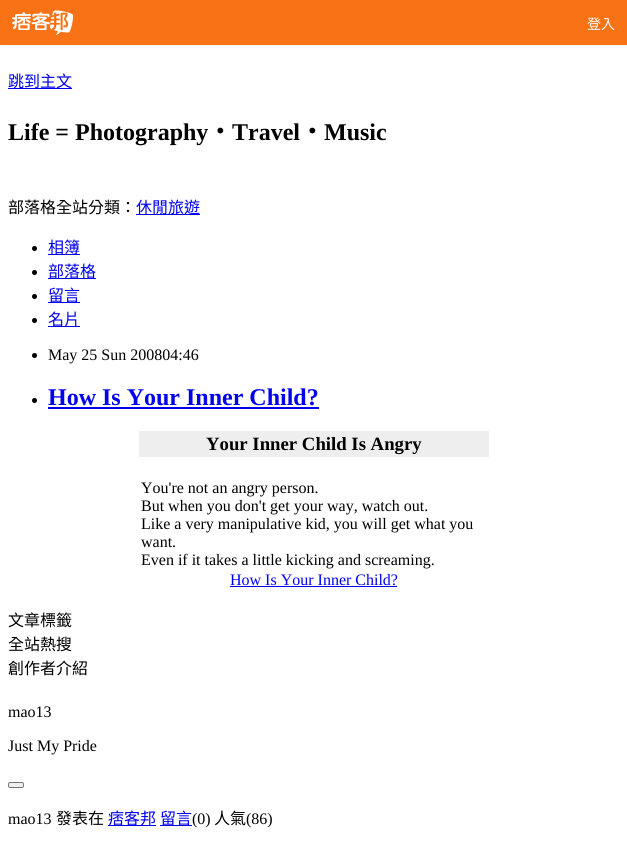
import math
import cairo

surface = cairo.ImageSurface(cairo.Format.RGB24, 627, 855)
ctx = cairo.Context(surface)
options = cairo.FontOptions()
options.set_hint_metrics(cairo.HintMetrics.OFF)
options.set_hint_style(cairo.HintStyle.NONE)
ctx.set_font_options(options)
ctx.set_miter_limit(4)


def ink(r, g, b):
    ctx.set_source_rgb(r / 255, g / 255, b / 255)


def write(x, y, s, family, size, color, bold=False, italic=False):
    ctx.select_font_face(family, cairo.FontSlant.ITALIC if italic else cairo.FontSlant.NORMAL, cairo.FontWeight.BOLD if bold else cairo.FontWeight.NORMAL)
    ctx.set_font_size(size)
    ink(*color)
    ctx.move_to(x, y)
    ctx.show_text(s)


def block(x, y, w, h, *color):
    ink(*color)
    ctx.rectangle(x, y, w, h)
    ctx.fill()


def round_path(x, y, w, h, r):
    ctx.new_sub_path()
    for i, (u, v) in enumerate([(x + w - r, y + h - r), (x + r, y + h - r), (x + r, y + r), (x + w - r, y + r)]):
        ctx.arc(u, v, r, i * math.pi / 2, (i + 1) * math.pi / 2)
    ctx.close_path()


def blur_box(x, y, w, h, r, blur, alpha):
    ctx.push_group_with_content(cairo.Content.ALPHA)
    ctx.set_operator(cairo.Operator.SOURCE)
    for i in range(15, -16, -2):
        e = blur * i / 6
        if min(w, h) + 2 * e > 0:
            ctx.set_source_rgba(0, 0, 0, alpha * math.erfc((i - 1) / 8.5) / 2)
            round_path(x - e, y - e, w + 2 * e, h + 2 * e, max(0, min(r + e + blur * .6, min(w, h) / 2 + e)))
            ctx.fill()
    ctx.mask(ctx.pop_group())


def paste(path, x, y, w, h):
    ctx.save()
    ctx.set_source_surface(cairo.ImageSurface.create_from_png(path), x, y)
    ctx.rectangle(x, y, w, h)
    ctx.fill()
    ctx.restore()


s1 = dict(family="Noto Sans CJK TC", size=14, color=(255, 255, 255))
s2 = dict(family="Noto Sans CJK TC", size=16, color=(0, 0, 238))
s3 = dict(family="Liberation Serif", size=24, color=(0, 0, 0), bold=True)
s4 = dict(family="Noto Sans CJK TC", size=24, color=(0, 0, 0), bold=True)
s5 = dict(family="Noto Sans CJK TC", size=16, color=(0, 0, 0))
s6 = dict(family="Liberation Serif", size=16, color=(0, 0, 0))
s7 = dict(family="Liberation Serif", size=24, color=(0, 0, 238), bold=True)
s8 = dict(family="Liberation Serif", size=18.75, color=(0, 0, 0), bold=True)
s9 = dict(family="Liberation Serif", size=16, color=(0, 0, 238))

ink(255, 255, 255)
ctx.paint()
ink(0, 0, 0)
blur_box(0, 1, 627, 45, 0, 1, 0.05)
block(0, 0, 627, 45, 249, 115, 22)
paste("pic1.png", 12, 10, 61, 25)
write(587, 29, "登入", **s1)
block(8, 88, 64, 1, 0, 0, 238)
write(8, 87, "跳到主文", **s2)
write(8, 140, "Life = Photography", **s3)
write(208, 140, "‧", **s4)
write(232, 140, "Travel", **s3)
write(300, 140, "‧", **s4)
write(324, 140, "Music", **s3)
write(8, 213, "部落格全站分類：", **s5)
block(136, 214, 64, 1, 0, 0, 238)
write(136, 213, "休閒旅遊", **s2)
ink(0, 0, 0)
ctx.new_path()
ctx.arc(34.5, 248.5, 2.5, 0, 2 * math.pi)
ctx.fill()
block(48, 254, 32, 1, 0, 0, 238)
write(48, 253, "相簿", **s2)
ink(0, 0, 0)
ctx.new_path()
ctx.arc(34.5, 272.5, 2.5, 0, 2 * math.pi)
ctx.fill()
block(48, 278, 48, 1, 0, 0, 238)
write(48, 277, "部落格", **s2)
ink(0, 0, 0)
ctx.new_path()
ctx.arc(34.5, 296.5, 2.5, 0, 2 * math.pi)
ctx.fill()
block(48, 302, 32, 1, 0, 0, 238)
write(48, 301, "留言", **s2)
ink(0, 0, 0)
ctx.new_path()
ctx.arc(34.5, 320.5, 2.5, 0, 2 * math.pi)
ctx.fill()
block(48, 326, 32, 1, 0, 0, 238)
write(48, 325, "名片", **s2)
ink(0, 0, 0)
ctx.new_path()
ctx.arc(34.5, 355.5, 2.5, 0, 2 * math.pi)
ctx.fill()
write(48, 360, "May 25 Sun 200804:46", **s6)
ctx.new_path()
ctx.arc(34.5, 400.5, 2.5, 0, 2 * math.pi)
ctx.fill()
write(48, 405, "How Is Your Inner Child?", **s7)
block(48, 407, 271, 2, 0, 0, 238)
block(139, 431, 350, 26, 238, 238, 238)
write(206, 450, "Your Inner Child Is Angry", **s8)
write(141, 493, "You're not an angry person.", **s6)
write(141, 511, "But when you don't get your way, watch out.", **s6)
write(141, 529, "Like a very manipulative kid, you will get what you", **s6)
write(141, 547, "want.", **s6)
write(141, 565, "Even if it takes a little kicking and screaming.", **s6)
write(230, 585, "How Is Your Inner Child?", **s9)
block(230, 586, 167, 1, 0, 0, 238)
write(8, 626, "文章標籤", **s5)
write(8, 650, "全站熱搜", **s5)
write(8, 674, "創作者介紹", **s5)
write(8, 717, "mao13", **s6)
write(8, 751, "Just My Pride", **s6)
ink(239, 239, 239)
round_path(8.5, 782.5, 15, 5, 1.5)
ctx.fill_preserve()
ink(118, 118, 118)
ctx.set_line_width(1)
ctx.stroke()
write(8, 824, "mao13", **s6)
write(56, 824, "發表在", **s5)
block(108, 825, 48, 1, 0, 0, 238)
write(108, 824, "痞客邦", **s2)
block(160, 825, 32, 1, 0, 0, 238)
write(160, 824, "留言", **s2)
write(192, 824, "(0)", **s6)
write(214, 824, "人氣", **s5)
write(246, 824, "(86)", **s6)
surface.write_to_png("screenshot.png")
